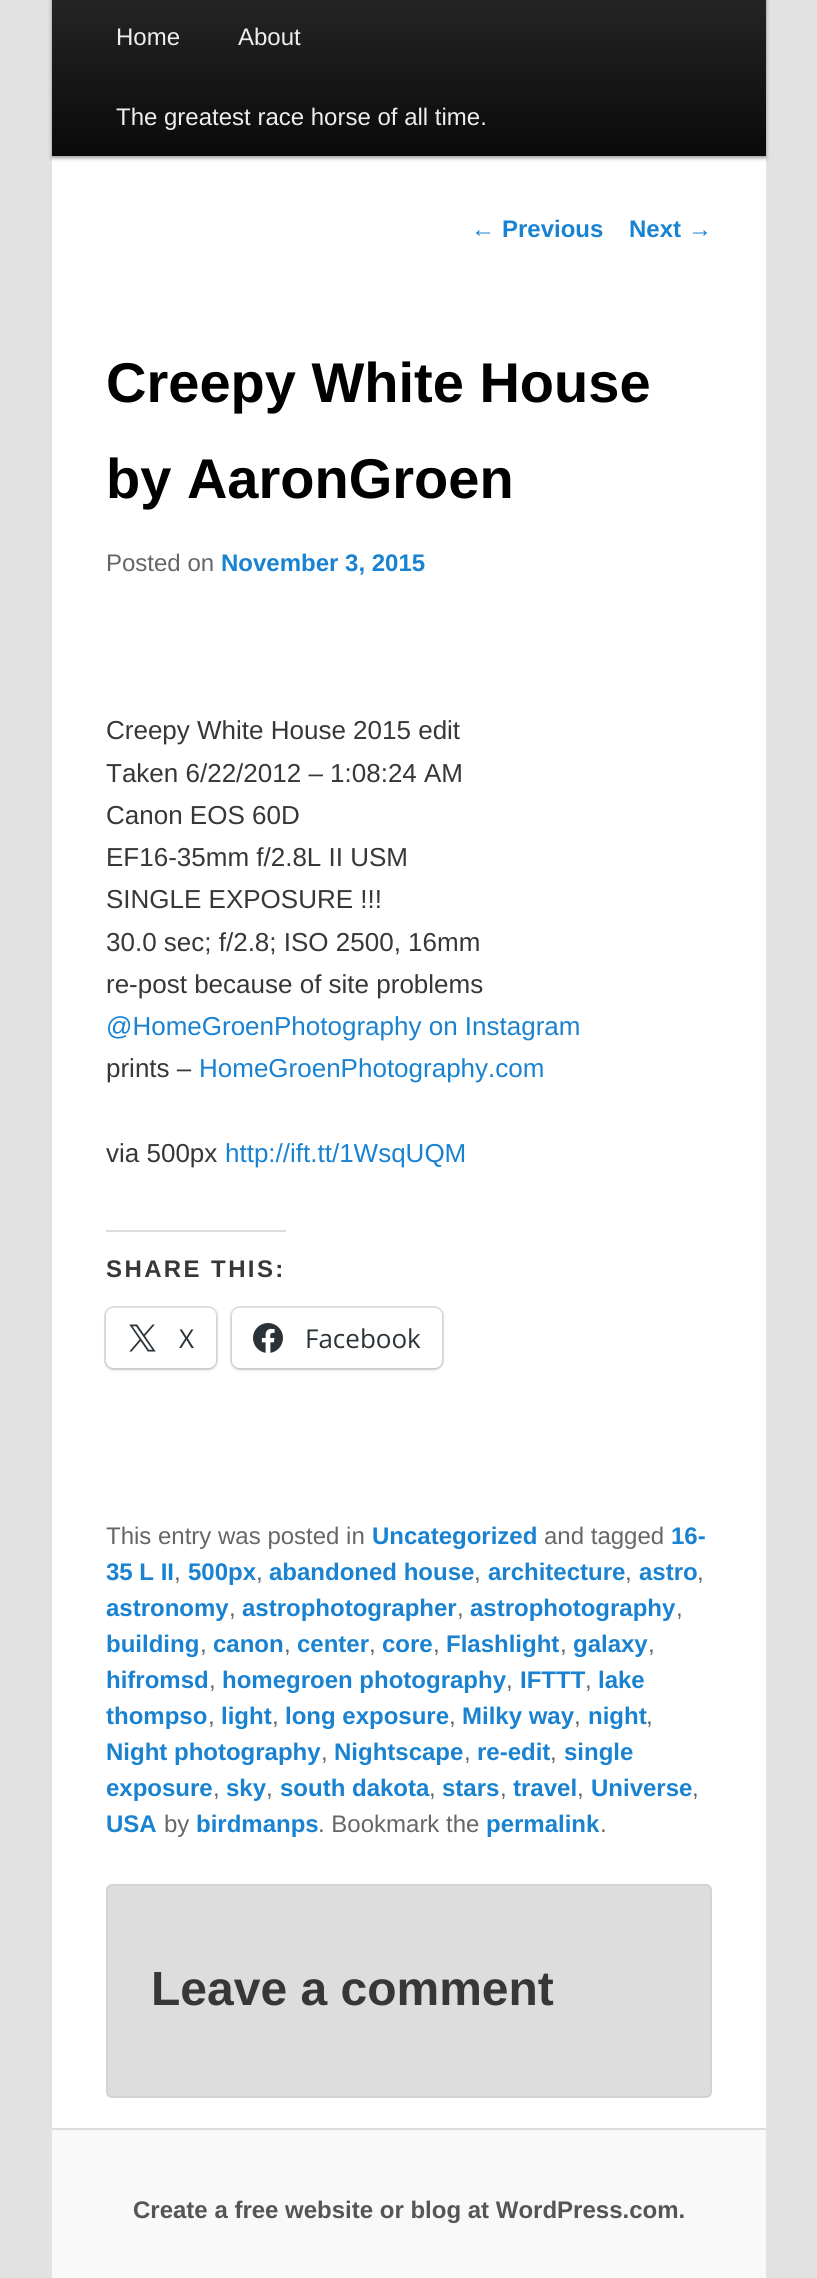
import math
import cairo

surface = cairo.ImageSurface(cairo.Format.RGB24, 817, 2278)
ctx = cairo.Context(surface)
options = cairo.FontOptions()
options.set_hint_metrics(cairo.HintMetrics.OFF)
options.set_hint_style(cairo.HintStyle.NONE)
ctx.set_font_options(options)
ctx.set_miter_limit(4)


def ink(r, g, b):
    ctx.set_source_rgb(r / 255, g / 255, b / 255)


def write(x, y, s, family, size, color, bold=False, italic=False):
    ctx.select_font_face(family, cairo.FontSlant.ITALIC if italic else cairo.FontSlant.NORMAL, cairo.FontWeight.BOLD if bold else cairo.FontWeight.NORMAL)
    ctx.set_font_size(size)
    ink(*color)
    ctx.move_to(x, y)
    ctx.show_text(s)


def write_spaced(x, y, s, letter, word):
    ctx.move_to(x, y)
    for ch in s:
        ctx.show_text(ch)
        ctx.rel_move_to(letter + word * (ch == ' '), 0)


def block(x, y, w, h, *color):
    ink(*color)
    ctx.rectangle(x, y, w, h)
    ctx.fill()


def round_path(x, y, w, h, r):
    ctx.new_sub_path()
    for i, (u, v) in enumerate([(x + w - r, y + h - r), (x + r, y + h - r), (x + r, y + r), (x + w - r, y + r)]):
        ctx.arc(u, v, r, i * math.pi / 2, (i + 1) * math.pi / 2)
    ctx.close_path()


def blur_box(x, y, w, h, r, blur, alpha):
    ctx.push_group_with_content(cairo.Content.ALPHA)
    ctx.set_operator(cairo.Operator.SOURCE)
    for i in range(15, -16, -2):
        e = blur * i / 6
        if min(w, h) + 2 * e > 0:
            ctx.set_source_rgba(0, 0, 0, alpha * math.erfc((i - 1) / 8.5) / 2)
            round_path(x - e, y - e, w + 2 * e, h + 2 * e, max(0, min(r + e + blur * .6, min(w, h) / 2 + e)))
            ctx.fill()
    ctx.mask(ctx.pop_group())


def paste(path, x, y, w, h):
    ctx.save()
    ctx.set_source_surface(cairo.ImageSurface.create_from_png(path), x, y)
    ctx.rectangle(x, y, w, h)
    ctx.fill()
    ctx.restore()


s1 = dict(family="Liberation Sans", size=24, color=(238, 238, 238))
s2 = dict(family="Liberation Sans", size=24, color=(25, 130, 209))
s3 = dict(family="Liberation Sans", size=24, color=(25, 130, 209), bold=True)
s4 = dict(family="Liberation Sans", size=56, color=(0, 0, 0), bold=True)
s5 = dict(family="Liberation Sans", size=24, color=(102, 102, 102))
s6 = dict(family="Liberation Sans", size=26, color=(55, 55, 55))
s7 = dict(family="Liberation Sans", size=26, color=(25, 130, 209))
s8 = dict(family="Open Sans", size=26, color=(44, 51, 56))
s9 = dict(family="Liberation Sans", size=48, color=(55, 55, 55), bold=True)
s10 = dict(family="Liberation Sans", size=24, color=(85, 85, 85), bold=True)

ink(226, 226, 226)
ctx.paint()
block(52, 156, 714, 1972, 255, 255, 255)
ink(0, 0, 0)
blur_box(52, -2, 714, 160, 0, 2, 0.4)
gradient = cairo.LinearGradient(409, -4, 409, 156)
gradient.add_color_stop_rgba(0, 0.145, 0.145, 0.145, 1)
gradient.add_color_stop_rgba(1, 0.039, 0.039, 0.039, 1)
ctx.set_source(gradient)
ctx.rectangle(52, 0, 714, 156)
ctx.fill()
write(116, 45, "Home", **s1)
write(238, 45, "About", **s1)
write(116, 125, "The greatest race horse of all time.", **s1)
write(471, 237, "←", **s2)
write(502, 237, "Previous", **s3)
write(629, 237, "Next", **s3)
write(688, 237, "→", **s2)
write(106, 402, "Creepy White House", **s4)
write(106, 498, "by AaronGroen", **s4)
write(106, 571, "Posted on", **s5)
write(221, 571, "November 3, 2015", **s3)
write(106, 739, "Creepy White House 2015 edit", **s6)
write(106, 782, "Taken 6/22/2012 – 1:08:24 AM", **s6)
write(106, 824, "Canon EOS 60D", **s6)
write(106, 866, "EF16-35mm f/2.8L II USM", **s6)
write(106, 908, "SINGLE EXPOSURE !!!", **s6)
write(106, 951, "30.0 sec; f/2.8; ISO 2500, 16mm", **s6)
write(106, 993, "re-post because of site problems", **s6)
write(106, 1035, "@HomeGroenPhotography on Instagram", **s7)
write(106, 1077, "prints –", **s6)
write(199, 1077, "HomeGroenPhotography.com", **s7)
write(106, 1162, "via 500px", **s6)
write(225, 1162, "http://ift.tt/1WsqUQM", **s7)
block(106, 1230, 180, 2, 220, 220, 222)
ctx.select_font_face("Liberation Sans", cairo.FontSlant.NORMAL, cairo.FontWeight.BOLD)
ctx.set_font_size(24)
ink(55, 55, 55)
write_spaced(106, 1277, "SHARE THIS:", 2.4, 0)
round_path(105, 1307, 112, 62, 9)
ink(224, 224, 224)
ctx.stroke()
ink(0, 0, 0)
blur_box(106, 1310, 110, 60, 8, 2, 0.12)
ink(255, 255, 255)
round_path(106, 1308, 110, 60, 8)
ctx.fill()
paste("pic1.png", 129, 1324, 27, 28)
write(179, 1348, "X", **s8)
round_path(231, 1307, 212, 62, 9)
ink(224, 224, 224)
ctx.stroke()
ink(0, 0, 0)
blur_box(232, 1310, 210, 60, 8, 2, 0.12)
ink(255, 255, 255)
round_path(232, 1308, 210, 60, 8)
ctx.fill()
paste("pic2.png", 253, 1323, 30, 30)
write(305, 1348, "Facebook", **s8)
write(106, 1544, "This entry was posted in", **s5)
write(372, 1544, "Uncategorized", **s3)
write(544, 1544, "and tagged", **s5)
write(671, 1544, "16-", **s3)
write(106, 1580, "35 L II", **s3)
write(174, 1580, ",", **s5)
write(188, 1580, "500px", **s3)
write(256, 1580, ",", **s5)
write(269, 1580, "abandoned house", **s3)
write(474, 1580, ",", **s5)
write(488, 1580, "architecture", **s3)
write(625, 1580, ",", **s5)
write(639, 1580, "astro", **s3)
write(697, 1580, ",", **s5)
write(106, 1616, "astronomy", **s3)
write(229, 1616, ",", **s5)
write(242, 1616, "astrophotographer", **s3)
write(457, 1616, ",", **s5)
write(470, 1616, "astrophotography", **s3)
write(676, 1616, ",", **s5)
write(106, 1652, "building", **s3)
write(200, 1652, ",", **s5)
write(213, 1652, "canon", **s3)
write(284, 1652, ",", **s5)
write(297, 1652, "center", **s3)
write(369, 1652, ",", **s5)
write(382, 1652, "core", **s3)
write(433, 1652, ",", **s5)
write(446, 1652, "Flashlight", **s3)
write(560, 1652, ",", **s5)
write(573, 1652, "galaxy", **s3)
write(648, 1652, ",", **s5)
write(106, 1688, "hifromsd", **s3)
write(209, 1688, ",", **s5)
write(222, 1688, "homegroen photography", **s3)
write(506, 1688, ",", **s5)
write(520, 1688, "IFTTT", **s3)
write(585, 1688, ",", **s5)
write(598, 1688, "lake", **s3)
write(106, 1724, "thompso", **s3)
write(208, 1724, ",", **s5)
write(221, 1724, "light", **s3)
write(272, 1724, ",", **s5)
write(285, 1724, "long exposure", **s3)
write(449, 1724, ",", **s5)
write(462, 1724, "Milky way", **s3)
write(574, 1724, ",", **s5)
write(588, 1724, "night", **s3)
write(646, 1724, ",", **s5)
write(106, 1760, "Night photography", **s3)
write(321, 1760, ",", **s5)
write(334, 1760, "Nightscape", **s3)
write(464, 1760, ",", **s5)
write(477, 1760, "re-edit", **s3)
write(550, 1760, ",", **s5)
write(564, 1760, "single", **s3)
write(106, 1796, "exposure", **s3)
write(213, 1796, ",", **s5)
write(226, 1796, "sky", **s3)
write(266, 1796, ",", **s5)
write(280, 1796, "south dakota", **s3)
write(429, 1796, ",", **s5)
write(442, 1796, "stars", **s3)
write(500, 1796, ",", **s5)
write(513, 1796, "travel", **s3)
write(577, 1796, ",", **s5)
write(591, 1796, "Universe", **s3)
write(692, 1796, ",", **s5)
write(106, 1832, "USA", **s3)
write(164, 1832, "by", **s5)
write(196, 1832, "birdmanps", **s3)
write(318, 1832, ". Bookmark the", **s5)
write(486, 1832, "permalink", **s3)
write(600, 1832, ".", **s5)
ink(221, 221, 221)
round_path(107, 1885, 604, 212, 5)
ctx.fill_preserve()
ink(211, 211, 211)
ctx.stroke()
write(151, 2005, "Leave a comment", **s9)
block(52, 2130, 714, 148, 249, 249, 249)
block(52, 2128, 714, 2, 221, 221, 221)
write(133, 2218, "Create a free website or blog at WordPress.com.", **s10)
surface.write_to_png("screenshot.png")
